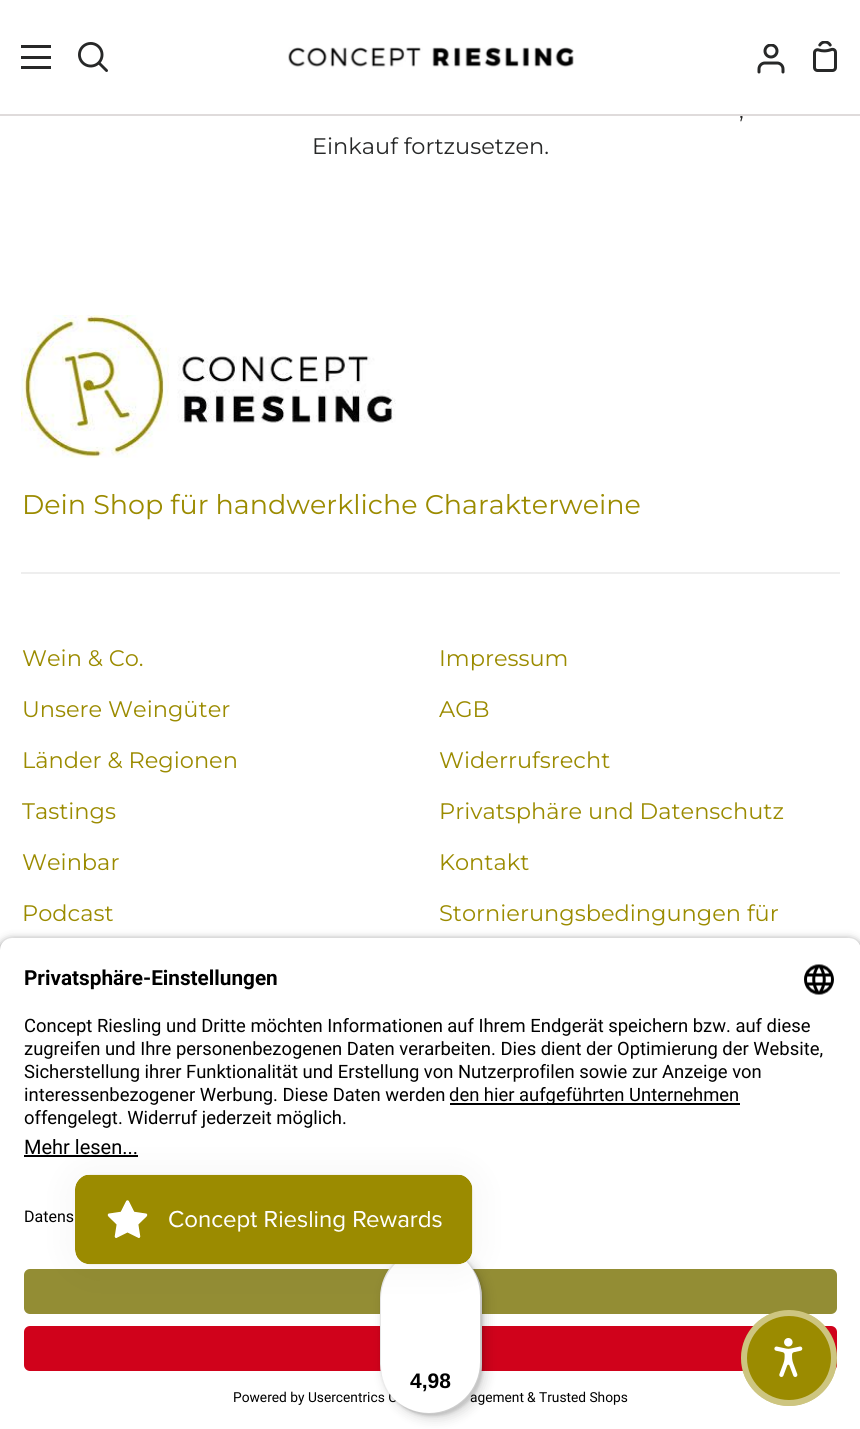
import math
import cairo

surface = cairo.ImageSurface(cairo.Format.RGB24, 860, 1429)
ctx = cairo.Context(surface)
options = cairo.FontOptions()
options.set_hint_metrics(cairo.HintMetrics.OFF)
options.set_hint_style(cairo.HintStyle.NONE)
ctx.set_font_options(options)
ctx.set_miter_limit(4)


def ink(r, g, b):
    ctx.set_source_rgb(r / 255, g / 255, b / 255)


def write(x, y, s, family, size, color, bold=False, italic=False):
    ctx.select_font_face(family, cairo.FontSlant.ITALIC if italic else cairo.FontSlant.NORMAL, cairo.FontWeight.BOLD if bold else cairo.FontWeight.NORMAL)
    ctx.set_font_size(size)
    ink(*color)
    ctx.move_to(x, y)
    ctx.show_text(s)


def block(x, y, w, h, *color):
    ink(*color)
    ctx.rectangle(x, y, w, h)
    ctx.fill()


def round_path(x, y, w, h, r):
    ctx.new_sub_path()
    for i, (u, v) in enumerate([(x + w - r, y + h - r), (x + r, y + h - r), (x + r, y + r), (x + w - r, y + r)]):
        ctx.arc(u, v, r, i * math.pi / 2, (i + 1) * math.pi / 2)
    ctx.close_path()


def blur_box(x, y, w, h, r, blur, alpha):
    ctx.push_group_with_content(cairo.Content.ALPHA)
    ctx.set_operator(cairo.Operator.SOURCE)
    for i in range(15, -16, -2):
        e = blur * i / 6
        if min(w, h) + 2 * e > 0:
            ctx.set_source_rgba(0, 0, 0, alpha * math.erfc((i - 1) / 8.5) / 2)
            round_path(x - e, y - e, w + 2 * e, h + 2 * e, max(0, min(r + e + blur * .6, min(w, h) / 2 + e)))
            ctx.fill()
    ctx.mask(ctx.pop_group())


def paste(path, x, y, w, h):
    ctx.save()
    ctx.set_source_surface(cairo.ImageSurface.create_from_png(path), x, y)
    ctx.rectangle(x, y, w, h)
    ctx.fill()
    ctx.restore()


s1 = dict(family="Montserrat", size=22.5, color=(39, 40, 40))
s2 = dict(family="Montserrat", size=27, color=(155, 139, 0))
s3 = dict(family="Montserrat", size=22.5, color=(155, 139, 0))
s4 = dict(family="Roboto", size=20.75, color=(0, 0, 0), bold=True)
s5 = dict(family="Roboto", size=18.4, color=(0, 0, 0))
s6 = dict(family="Roboto", size=20, color=(0, 0, 0))
s7 = dict(family="Roboto", size=16, color=(0, 0, 0))
s8 = dict(family="Roboto", size=13.75, color=(0, 0, 0))
s9 = dict(family="Liberation Sans", size=21, color=(0, 0, 0), bold=True)

ink(255, 255, 255)
ctx.paint()
write(739, 118, ",", **s1)
block(0, 114, 860, 2, 223, 219, 219)
block(21, 45, 30, 3, 39, 40, 40)
block(21, 56, 30, 3, 39, 40, 40)
block(21, 66, 30, 3, 39, 40, 40)
paste("pic1.png", 78, 42, 30, 30)
paste("pic2.png", 288, 47, 286, 21)
paste("pic3.png", 757, 44, 28, 30)
paste("pic4.png", 813, 41, 24, 31)
write(312, 154, "Einkauf fortzusetzen.", **s1)
paste("pic5.png", 21, 315, 375, 143)
write(22, 514, "Dein Shop für handwerkliche Charakterweine", **s2)
block(21, 572, 819, 2, 238, 238, 238)
write(22, 666, "Wein & Co.", **s3)
write(22, 717, "Unsere Weingüter", **s3)
write(22, 768, "Länder & Regionen", **s3)
write(22, 819, "Tastings", **s3)
write(22, 870, "Weinbar", **s3)
write(22, 921, "Podcast", **s3)
write(439, 666, "Impressum", **s3)
write(439, 717, "AGB", **s3)
write(439, 768, "Widerrufsrecht", **s3)
write(439, 819, "Privatsphäre und Datenschutz", **s3)
write(439, 870, "Kontakt", **s3)
write(439, 921, "Stornierungsbedingungen für", **s3)
ink(0, 0, 0)
blur_box(0, 942, 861, 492, 12, 5, 0.8)
ink(255, 255, 255)
ctx.new_path()
ctx.move_to(12, 938)
ctx.line_to(849, 938)
ctx.curve_to(855.5, 938, 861, 943.5, 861, 950)
ctx.line_to(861, 1184)
ctx.line_to(0, 1184)
ctx.line_to(0, 950)
ctx.curve_to(0, 943.5, 5.5, 938, 12, 938)
ctx.close_path()
ctx.fill()
write(24, 985, "Privatsphäre-Einstellungen", **s4)
paste("pic6.png", 804, 964, 30, 31)
write(24, 1032, "Concept Riesling und Dritte möchten Informationen auf Ihrem Endgerät speichern bzw. auf diese", **s5)
write(24, 1055, "zugreifen und Ihre personenbezogenen Daten verarbeiten. Dies dient der Optimierung der Website,", **s5)
write(24, 1078, "Sicherstellung ihrer Funktionalität und Erstellung von Nutzerprofilen sowie zur Anzeige von", **s5)
write(24, 1101, "interessenbezogener Werbung. Diese Daten werden", **s5)
block(450, 1103, 290, 2, 0, 0, 0)
write(449, 1101, "den hier aufgeführten Unternehmen", **s5)
write(24, 1124, "offengelegt. Widerruf jederzeit möglich.", **s5)
write(24, 1154, "Mehr lesen...", **s6)
block(24, 1155, 114, 2, 0, 0, 0)
block(0, 1184, 860, 245, 255, 255, 255)
write(24, 1222, "Datens", **s7)
ink(147, 141, 52)
round_path(24, 1269, 813, 45, 6)
ctx.fill()
ink(208, 2, 27)
round_path(24, 1326, 813, 45, 6)
ctx.fill()
write(233, 1402, "Powered by Usercentrics C", **s8)
write(470, 1402, "agement", **s8)
write(527, 1402, "& Trusted Shops", **s8)
ink(0, 0, 0)
blur_box(384, 1251, 102, 168, 51, 6, 0.15)
blur_box(381, 1248, 102, 168, 51, 1.5, 0.15)
ink(255, 255, 255)
round_path(380, 1247, 102, 168, 51)
ctx.fill()
ctx.set_source_rgba(0, 0, 0, 0.1)
ctx.new_path()
ctx.move_to(432, 1248)
ctx.curve_to(447, 1248, 460, 1254, 470, 1265)
ctx.curve_to(460, 1254, 446, 1247, 431, 1247)
ctx.curve_to(403, 1247, 380, 1270, 380, 1298)
ctx.line_to(380, 1364)
ctx.curve_to(380, 1379, 387, 1393, 398, 1403)
ctx.curve_to(387, 1393, 381, 1380, 381, 1365)
ctx.line_to(381, 1299)
ctx.curve_to(381, 1271, 404, 1248, 432, 1248)
ctx.close_path()
ctx.fill()
ctx.set_source_rgba(0, 0, 0, 0.2)
ctx.new_path()
ctx.move_to(393, 1398)
ctx.curve_to(402, 1408, 416, 1415, 431, 1415)
ctx.curve_to(459, 1415, 482, 1392, 482, 1364)
ctx.line_to(482, 1298)
ctx.curve_to(482, 1283, 475, 1269, 465, 1260)
ctx.curve_to(474, 1269, 480, 1282, 480, 1296)
ctx.line_to(480, 1362)
ctx.curve_to(480, 1390, 457, 1413, 429, 1413)
ctx.curve_to(415, 1413, 402, 1407, 393, 1398)
ctx.close_path()
ctx.fill()
ctx.set_source_rgba(0.196, 0.196, 0.196, 0.2)
ctx.new_path()
ctx.move_to(399, 1404)
ctx.curve_to(408, 1411, 419, 1415, 431, 1415)
ctx.curve_to(459, 1415, 482, 1392, 482, 1364)
ctx.line_to(482, 1298)
ctx.curve_to(482, 1286, 478, 1275, 471, 1266)
ctx.curve_to(477, 1275, 481, 1285, 481, 1297)
ctx.line_to(481, 1363)
ctx.curve_to(481, 1391, 458, 1414, 430, 1414)
ctx.curve_to(418, 1414, 408, 1410, 399, 1404)
ctx.close_path()
ctx.fill()
ctx.set_source_rgba(1, 1, 1, 0.3)
ctx.new_path()
ctx.move_to(392, 1397)
ctx.curve_to(402, 1408, 416, 1415, 431, 1415)
ctx.curve_to(459, 1415, 482, 1392, 482, 1364)
ctx.line_to(482, 1298)
ctx.curve_to(482, 1283, 475, 1269, 464, 1259)
ctx.curve_to(475, 1269, 481, 1282, 481, 1297)
ctx.line_to(481, 1363)
ctx.curve_to(481, 1391, 458, 1414, 430, 1414)
ctx.curve_to(415, 1414, 402, 1408, 392, 1397)
ctx.close_path()
ctx.fill()
ink(0, 0, 0)
blur_box(75, 1175, 398, 90, 15, 19, 0.05)
paste("pic7.png", 75, 1174, 398, 91)
write(410, 1388, "4,98", **s9)
ink(155, 139, 0)
ctx.new_path()
ctx.arc(789, 1358, 48, 0, 2 * math.pi)
ctx.fill()
ctx.arc(789, 1358, 45, 0, 2 * math.pi)
ctx.set_source_rgba(1, 1, 1, 0.5)
ctx.set_line_width(6)
ctx.stroke()
paste("pic8.png", 774, 1338, 29, 39)
surface.write_to_png("screenshot.png")
